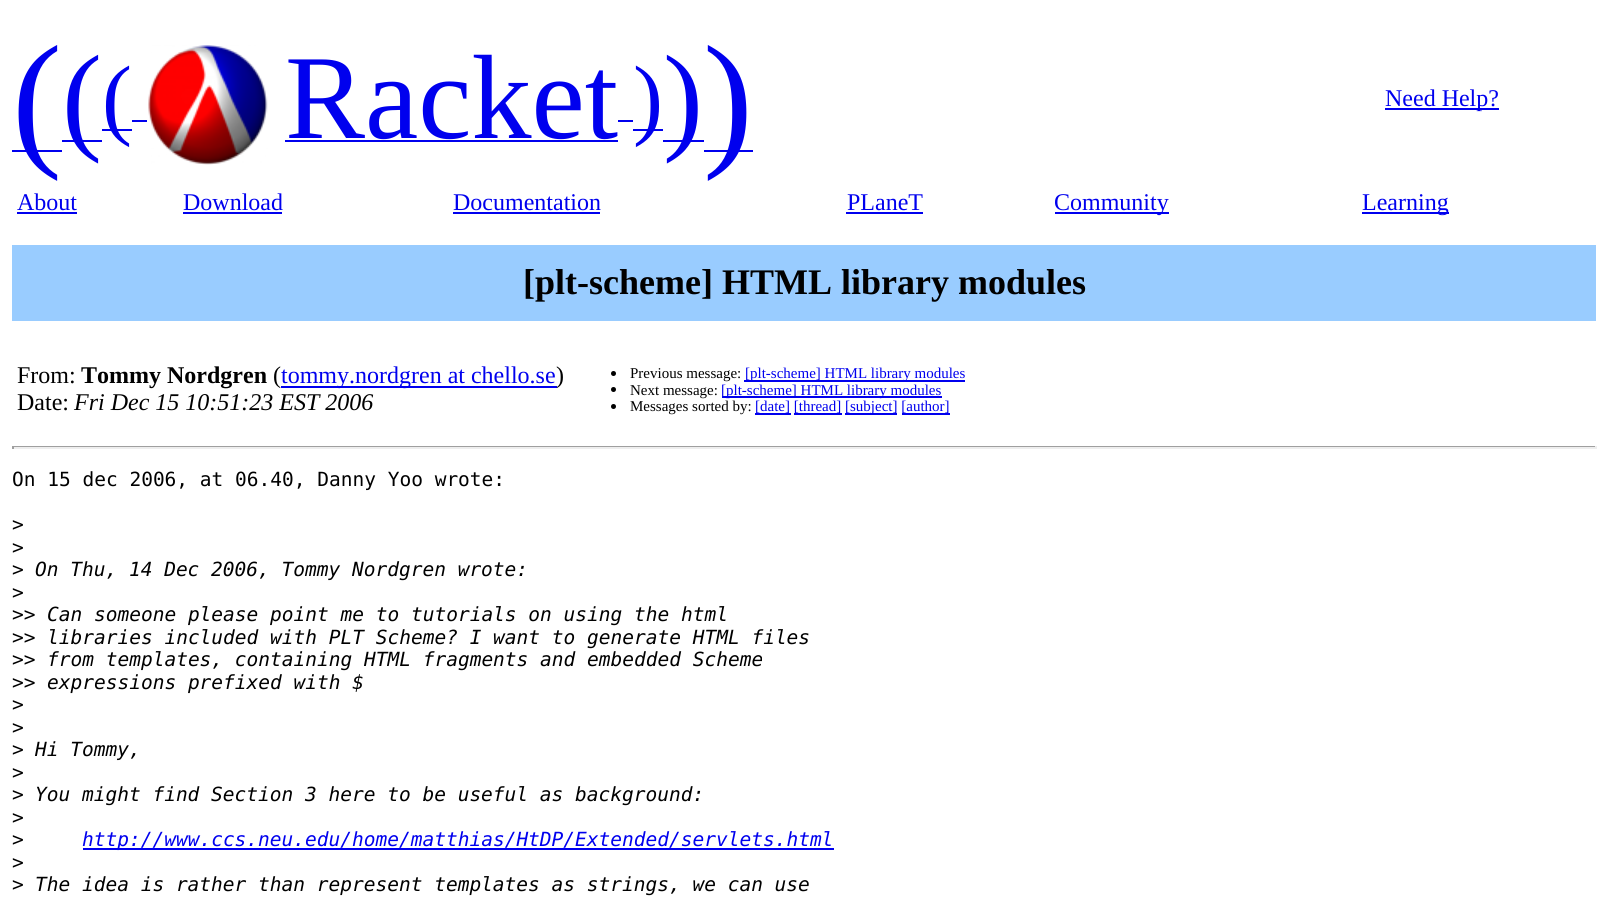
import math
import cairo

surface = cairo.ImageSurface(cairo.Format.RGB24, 1607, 903)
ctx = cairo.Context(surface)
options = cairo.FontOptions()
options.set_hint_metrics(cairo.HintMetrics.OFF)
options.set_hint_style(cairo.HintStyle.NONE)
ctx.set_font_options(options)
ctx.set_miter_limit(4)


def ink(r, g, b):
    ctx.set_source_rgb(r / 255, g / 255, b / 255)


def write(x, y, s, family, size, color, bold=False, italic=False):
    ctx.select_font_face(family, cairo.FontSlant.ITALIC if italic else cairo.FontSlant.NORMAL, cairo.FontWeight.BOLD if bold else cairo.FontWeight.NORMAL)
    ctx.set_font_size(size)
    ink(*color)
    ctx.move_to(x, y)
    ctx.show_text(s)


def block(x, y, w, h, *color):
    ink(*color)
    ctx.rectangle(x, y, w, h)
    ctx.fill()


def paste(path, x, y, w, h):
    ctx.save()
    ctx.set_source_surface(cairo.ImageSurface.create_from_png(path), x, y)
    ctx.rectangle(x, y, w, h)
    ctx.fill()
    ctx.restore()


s1 = dict(family="Liberation Serif", size=150, color=(0, 0, 238))
s2 = dict(family="Liberation Serif", size=120, color=(0, 0, 238))
s3 = dict(family="Liberation Serif", size=90, color=(0, 0, 238))
s4 = dict(family="Liberation Serif", size=24, color=(0, 0, 238))
s5 = dict(family="Liberation Serif", size=36, color=(0, 0, 0), bold=True)
s6 = dict(family="Liberation Serif", size=24, color=(0, 0, 0))
s7 = dict(family="Liberation Serif", size=24, color=(0, 0, 0), bold=True)
s8 = dict(family="Liberation Serif", size=24, color=(0, 0, 0), italic=True)
s9 = dict(family="Liberation Serif", size=15, color=(0, 0, 0))
s10 = dict(family="Liberation Serif", size=15, color=(0, 0, 238))
s11 = dict(family="DejaVu Sans Mono", size=19.5, color=(0, 0, 0))
s12 = dict(family="DejaVu Sans Mono", size=19.5, color=(0, 0, 0), italic=True)
s13 = dict(family="DejaVu Sans Mono", size=19.5, color=(0, 0, 238), italic=True)

ink(255, 255, 255)
ctx.paint()
block(12, 150, 50, 2, 0, 0, 238)
write(12, 149, "(", **s1)
block(62, 140, 40, 2, 0, 0, 238)
write(62, 138, "(", **s2)
block(102, 129, 30, 2, 0, 0, 238)
write(102, 128, "(", **s3)
block(132, 120, 15, 2, 0, 0, 238)
paste("pic1.png", 148, 45, 120, 120)
write(285, 138, "Racket", **s2)
block(633, 129, 30, 2, 0, 0, 238)
write(633, 128, ")", **s3)
block(285, 140, 333, 2, 0, 0, 238)
block(618, 120, 15, 2, 0, 0, 238)
block(663, 140, 41, 2, 0, 0, 238)
write(663, 138, ")", **s2)
block(704, 150, 49, 2, 0, 0, 238)
write(703, 149, ")", **s1)
block(1385, 108, 114, 2, 0, 0, 238)
write(1385, 106, "Need Help?", **s4)
write(17, 210, "About", **s4)
block(17, 212, 60, 2, 0, 0, 238)
write(183, 210, "Download", **s4)
block(183, 212, 99, 2, 0, 0, 238)
write(453, 210, "Documentation", **s4)
block(453, 212, 147, 2, 0, 0, 238)
write(847, 210, "PLaneT", **s4)
block(846, 212, 77, 2, 0, 0, 238)
block(1055, 212, 114, 2, 0, 0, 238)
write(1054, 210, "Community", **s4)
block(1362, 212, 87, 2, 0, 0, 238)
write(1362, 210, "Learning", **s4)
block(12, 245, 1584, 76, 153, 204, 255)
write(523, 294, "[plt-scheme] HTML library modules", **s5)
write(17, 383, "From:", **s6)
write(81, 383, "Tommy Nordgren", **s7)
write(273, 383, "(", **s6)
block(281, 386, 276, 2, 0, 0, 238)
write(281, 383, "tommy.nordgren at chello.se", **s4)
write(556, 383, ")", **s6)
write(17, 410, "Date:", **s6)
write(74, 410, "Fri Dec 15 10:51:23 EST 2006", **s8)
ctx.new_path()
ctx.arc(613.5, 373.5, 2.5, 0, 2 * math.pi)
ctx.fill()
write(630, 378, "Previous message:", **s9)
block(744, 380, 221, 2, 0, 0, 238)
write(745, 378, "[plt-scheme] HTML library modules", **s10)
ink(0, 0, 0)
ctx.new_path()
ctx.arc(613.5, 389.5, 2.5, 0, 2 * math.pi)
ctx.fill()
write(630, 395, "Next message:", **s9)
block(722, 396, 220, 2, 0, 0, 238)
write(721, 395, "[plt-scheme] HTML library modules", **s10)
ink(0, 0, 0)
ctx.new_path()
ctx.arc(613.5, 406.5, 2.5, 0, 2 * math.pi)
ctx.fill()
write(630, 411, "Messages sorted by:", **s9)
write(755, 411, "[date] [thread]", **s10)
block(755, 413, 36, 2, 0, 0, 238)
block(845, 413, 52, 2, 0, 0, 238)
write(845, 411, "[subject] [author]", **s10)
block(794, 413, 48, 2, 0, 0, 238)
block(902, 413, 48, 2, 0, 0, 238)
block(12, 446, 1584, 1, 159, 159, 159)
block(1595, 446, 2, 3, 238, 238, 238)
block(12, 447, 1584, 2, 238, 238, 238)
block(12, 446, 2, 3, 159, 159, 159)
write(12, 486, "On 15 dec 2006, at 06.40, Danny Yoo wrote:", **s11)
write(12, 531, ">", **s11)
write(12, 554, ">", **s11)
write(12, 576, ">", **s11)
write(35, 576, "On Thu, 14 Dec 2006, Tommy Nordgren wrote:", **s12)
write(12, 599, ">", **s11)
write(12, 621, ">>", **s11)
write(47, 621, "Can someone please point me to tutorials on using the html", **s12)
write(12, 644, ">>", **s11)
write(47, 644, "libraries included with PLT Scheme? I want to generate HTML files", **s12)
write(12, 666, ">>", **s11)
write(47, 666, "from templates, containing HTML fragments and embedded Scheme", **s12)
write(12, 689, ">>", **s11)
write(47, 689, "expressions prefixed with $", **s12)
write(12, 711, ">", **s11)
write(12, 734, ">", **s11)
write(12, 756, ">", **s11)
write(35, 756, "Hi Tommy,", **s12)
write(12, 779, ">", **s11)
write(12, 801, ">", **s11)
write(35, 801, "You might find Section 3 here to be useful as background:", **s12)
write(12, 824, ">", **s11)
write(12, 846, ">", **s11)
block(83, 848, 751, 2, 0, 0, 238)
write(82, 846, "http://www.ccs.neu.edu/home/matthias/HtDP/Extended/servlets.html", **s13)
write(12, 869, ">", **s11)
write(12, 891, ">", **s11)
write(35, 891, "The idea is rather than represent templates as strings, we can use", **s12)
surface.write_to_png("screenshot.png")
